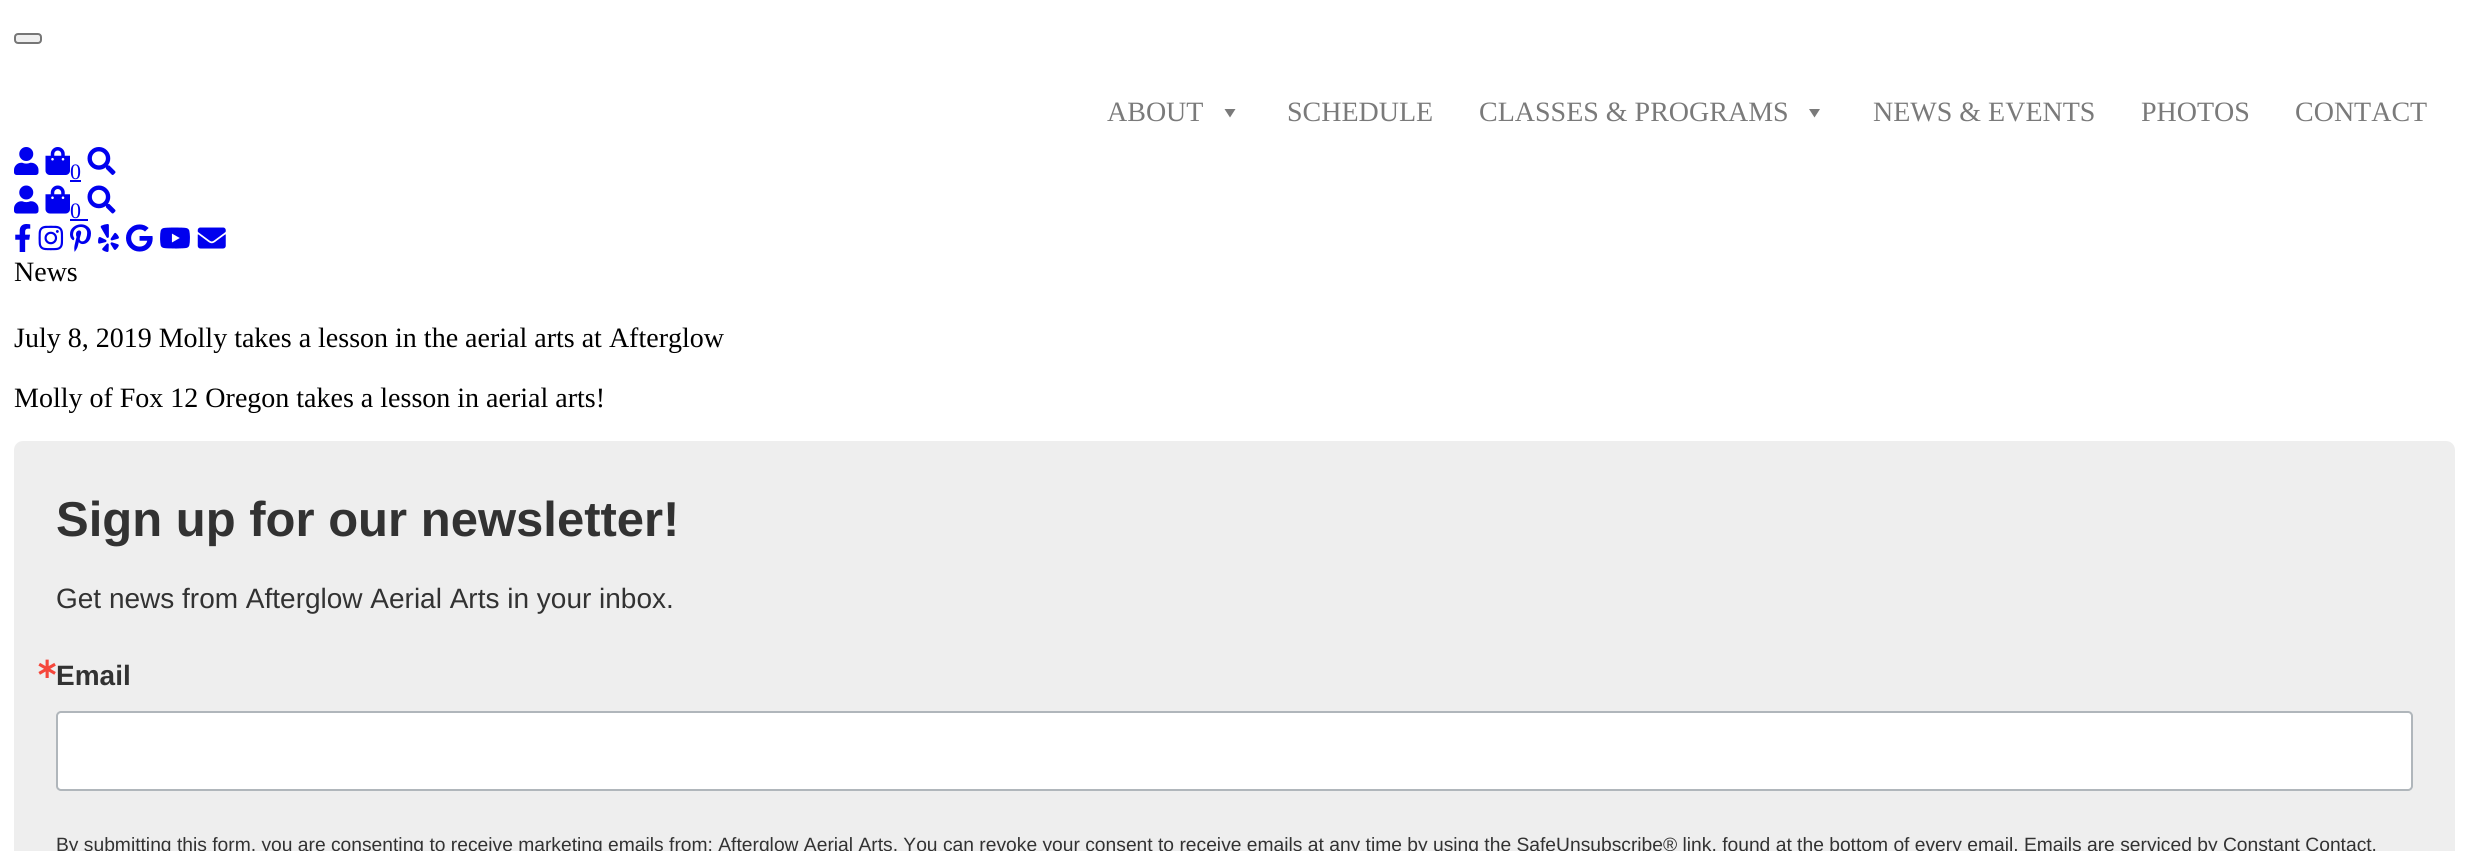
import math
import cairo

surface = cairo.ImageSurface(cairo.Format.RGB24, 2469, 851)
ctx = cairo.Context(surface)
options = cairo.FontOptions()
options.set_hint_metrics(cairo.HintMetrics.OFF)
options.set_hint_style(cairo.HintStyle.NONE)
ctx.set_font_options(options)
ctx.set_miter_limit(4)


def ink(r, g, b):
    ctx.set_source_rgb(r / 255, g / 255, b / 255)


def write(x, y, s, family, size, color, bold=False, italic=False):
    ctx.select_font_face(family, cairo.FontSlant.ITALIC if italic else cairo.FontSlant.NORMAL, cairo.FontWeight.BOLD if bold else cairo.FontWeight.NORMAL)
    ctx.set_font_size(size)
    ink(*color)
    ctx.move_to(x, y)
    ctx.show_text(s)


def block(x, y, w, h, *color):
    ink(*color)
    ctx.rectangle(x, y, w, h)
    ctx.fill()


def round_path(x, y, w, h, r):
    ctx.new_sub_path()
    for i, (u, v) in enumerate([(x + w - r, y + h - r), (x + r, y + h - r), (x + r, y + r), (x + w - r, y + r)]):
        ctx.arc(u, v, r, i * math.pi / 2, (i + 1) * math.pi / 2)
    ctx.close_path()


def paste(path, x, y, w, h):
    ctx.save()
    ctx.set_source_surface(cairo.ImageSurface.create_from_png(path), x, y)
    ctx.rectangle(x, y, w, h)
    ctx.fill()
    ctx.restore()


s1 = dict(family="Liberation Serif", size=28, color=(122, 122, 122))
s2 = dict(family="Liberation Serif", size=22, color=(0, 0, 238))
s3 = dict(family="Liberation Serif", size=28, color=(0, 0, 0))
s4 = dict(family="Liberation Sans", size=49, color=(50, 50, 50), bold=True)
s5 = dict(family="Liberation Sans", size=28, color=(50, 50, 50))
s6 = dict(family="DejaVu Sans", size=28, color=(245, 70, 59), bold=True)
s7 = dict(family="Liberation Sans", size=28, color=(50, 50, 50), bold=True)
s8 = dict(family="Liberation Sans", size=19.25, color=(50, 50, 50))

ink(255, 255, 255)
ctx.paint()
ink(239, 239, 239)
round_path(15, 34, 26, 9, 3)
ctx.fill_preserve()
ink(118, 118, 118)
ctx.stroke()
write(1107, 121, "ABOUT", **s1)
ctx.new_path()
ctx.move_to(1235.5, 109)
ctx.line_to(1230, 117.5)
ctx.line_to(1224.5, 109)
ctx.close_path()
ctx.fill()
write(1287, 121, "SCHEDULE", **s1)
write(1479, 121, "CLASSES & PROGRAMS", **s1)
ctx.new_path()
ctx.move_to(1820, 109)
ctx.line_to(1814.5, 117.5)
ctx.line_to(1809, 109)
ctx.close_path()
ctx.fill()
write(1873, 121, "NEWS & EVENTS", **s1)
write(2141, 121, "PHOTOS", **s1)
write(2295, 121, "CONTACT", **s1)
paste("pic1.png", 14, 147, 25, 28)
paste("pic2.png", 45, 147, 25, 28)
write(70, 179, "0", **s2)
block(70, 180, 11, 2, 0, 0, 238)
paste("pic3.png", 87, 147, 29, 28)
paste("pic4.png", 14, 185, 25, 29)
paste("pic5.png", 45, 185, 25, 29)
write(70, 218, "0", **s2)
block(70, 219, 18, 2, 0, 0, 238)
paste("pic6.png", 87, 185, 29, 29)
paste("pic7.png", 15, 224, 16, 28)
paste("pic8.png", 38, 225, 26, 26)
paste("pic9.png", 70, 224, 21, 28)
paste("pic10.png", 98, 224, 21, 28)
paste("pic11.png", 126, 224, 27, 28)
paste("pic12.png", 160, 227, 30, 22)
paste("pic13.png", 197, 227, 29, 22)
write(14, 281, "News", **s3)
write(14, 347, "July 8, 2019 Molly takes a lesson in the aerial arts at Afterglow", **s3)
write(14, 407, "Molly of Fox 12 Oregon takes a lesson in aerial arts!", **s3)
ink(238, 238, 238)
round_path(14, 441, 2441, 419, 9)
ctx.fill()
write(56, 536, "Sign up for our newsletter!", **s4)
write(56, 608, "Get news from Afterglow Aerial Arts in your inbox.", **s5)
write(35, 678, "∗", **s6)
write(56, 685, "Email", **s7)
ink(255, 255, 255)
round_path(57, 712, 2355, 78, 4)
ctx.fill_preserve()
ink(176, 182, 187)
ctx.stroke()
write(56, 851, "By submitting this form, you are consenting to receive marketing emails from: Afterglow Aerial Arts. You can revoke your consent to receive emails at any time by using the SafeUnsubscribe® link, found at the bottom of every email. Emails are serviced by Constant Contact.", **s8)
surface.write_to_png("screenshot.png")
